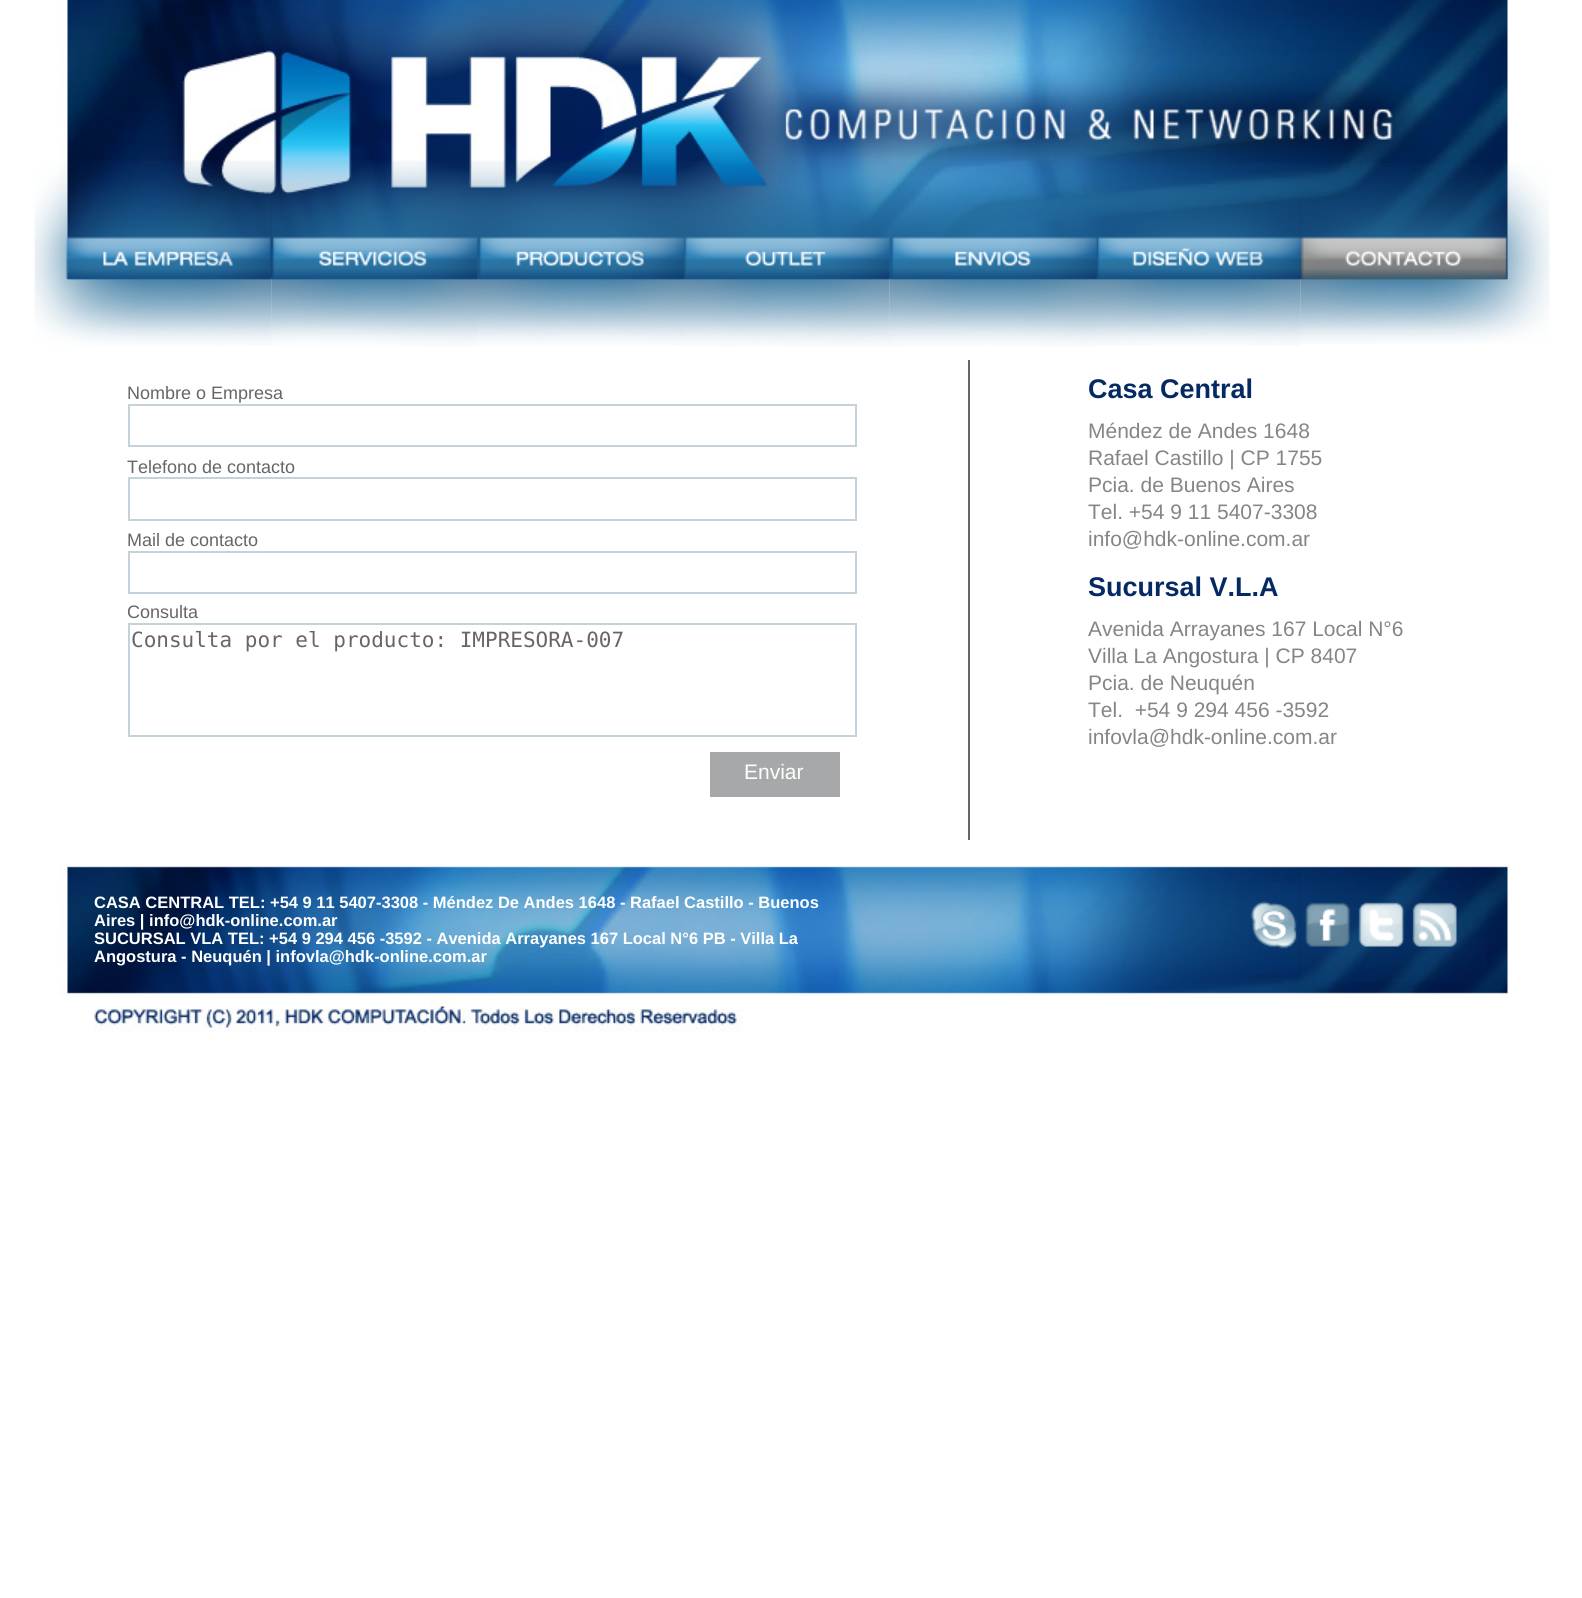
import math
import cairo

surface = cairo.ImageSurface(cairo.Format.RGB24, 1582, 1598)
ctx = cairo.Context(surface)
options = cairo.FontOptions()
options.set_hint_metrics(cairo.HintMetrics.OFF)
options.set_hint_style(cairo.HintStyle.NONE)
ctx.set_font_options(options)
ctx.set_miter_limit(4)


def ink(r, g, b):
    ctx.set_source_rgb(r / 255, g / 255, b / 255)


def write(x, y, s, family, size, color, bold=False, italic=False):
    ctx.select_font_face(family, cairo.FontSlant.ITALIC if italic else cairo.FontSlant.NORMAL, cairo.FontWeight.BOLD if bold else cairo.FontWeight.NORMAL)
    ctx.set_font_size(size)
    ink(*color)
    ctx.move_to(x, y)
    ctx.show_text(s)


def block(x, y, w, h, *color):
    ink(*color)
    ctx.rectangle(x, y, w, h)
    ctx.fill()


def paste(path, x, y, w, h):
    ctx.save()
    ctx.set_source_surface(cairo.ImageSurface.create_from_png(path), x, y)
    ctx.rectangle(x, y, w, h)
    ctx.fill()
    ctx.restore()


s1 = dict(family="Liberation Sans", size=18, color=(102, 102, 102))
s2 = dict(family="DejaVu Sans Mono", size=21, color=(102, 102, 102))
s3 = dict(family="Liberation Sans", size=21, color=(255, 255, 255))
s4 = dict(family="Liberation Sans", size=27, color=(5, 41, 99), bold=True)
s5 = dict(family="Liberation Sans", size=21, color=(134, 133, 133))
s6 = dict(family="Liberation Sans", size=16.5, color=(255, 255, 255), bold=True)

ink(255, 255, 255)
ctx.paint()
paste("pic1.png", 59, 0, 1451, 299)
paste("pic2.png", 34, 160, 238, 186)
paste("pic3.png", 271, 160, 206, 187)
paste("pic4.png", 477, 160, 207, 186)
paste("pic5.png", 684, 161, 206, 186)
paste("pic6.png", 889, 163, 206, 184)
paste("pic7.png", 1095, 163, 206, 183)
paste("pic8.png", 1300, 163, 250, 181)
block(968, 360, 2, 480, 102, 102, 102)
write(127, 399, "Nombre o Empresa", **s1)
ctx.rectangle(129, 405, 727, 41)
ink(196, 210, 218)
ctx.stroke()
write(127, 473, "Telefono de contacto", **s1)
ctx.rectangle(129, 478, 727, 42)
ink(196, 210, 218)
ctx.stroke()
write(127, 546, "Mail de contacto", **s1)
ctx.rectangle(129, 552, 727, 41)
ink(196, 210, 218)
ctx.stroke()
ctx.save()
ctx.rectangle(128, 360, 735, 437)
ctx.clip()
write(127, 618, "Consulta", **s1)
ctx.restore()
ctx.rectangle(129, 624, 727, 112)
ctx.stroke()
write(131, 647, "Consulta por el producto: IMPRESORA-007", **s2)
block(710, 752, 130, 45, 167, 168, 169)
write(744, 779, "Enviar", **s3)
write(1088, 398, "Casa Central", **s4)
write(1088, 438, "Méndez de Andes 1648", **s5)
write(1088, 465, "Rafael Castillo | CP 1755", **s5)
write(1088, 492, "Pcia. de Buenos Aires", **s5)
write(1088, 519, "Tel. +54 9 11 5407-3308", **s5)
write(1088, 546, "info@hdk-online.com.ar", **s5)
write(1088, 596, "Sucursal V.L.A", **s4)
write(1088, 636, "Avenida Arrayanes 167 Local N°6", **s5)
write(1088, 663, "Villa La Angostura | CP 8407", **s5)
write(1088, 690, "Pcia. de Neuquén", **s5)
write(1088, 717, "Tel.  +54 9 294 456 -3592", **s5)
write(1088, 744, "infovla@hdk-online.com.ar", **s5)
paste("pic9.png", 59, 864, 1451, 168)
write(94, 908, "CASA CENTRAL TEL: +54 9 11 5407-3308 - Méndez De Andes 1648 - Rafael Castillo - Buenos", **s6)
write(94, 926, "Aires | info@hdk-online.com.ar", **s6)
write(94, 944, "SUCURSAL VLA TEL: +54 9 294 456 -3592 - Avenida Arrayanes 167 Local N°6 PB - Villa La", **s6)
write(94, 962, "Angostura - Neuquén | infovla@hdk-online.com.ar", **s6)
paste("pic10.png", 1250, 882, 50, 92)
paste("pic11.png", 1301, 870, 54, 112)
paste("pic12.png", 1354, 870, 53, 112)
paste("pic13.png", 1407, 870, 80, 112)
surface.write_to_png("screenshot.png")
